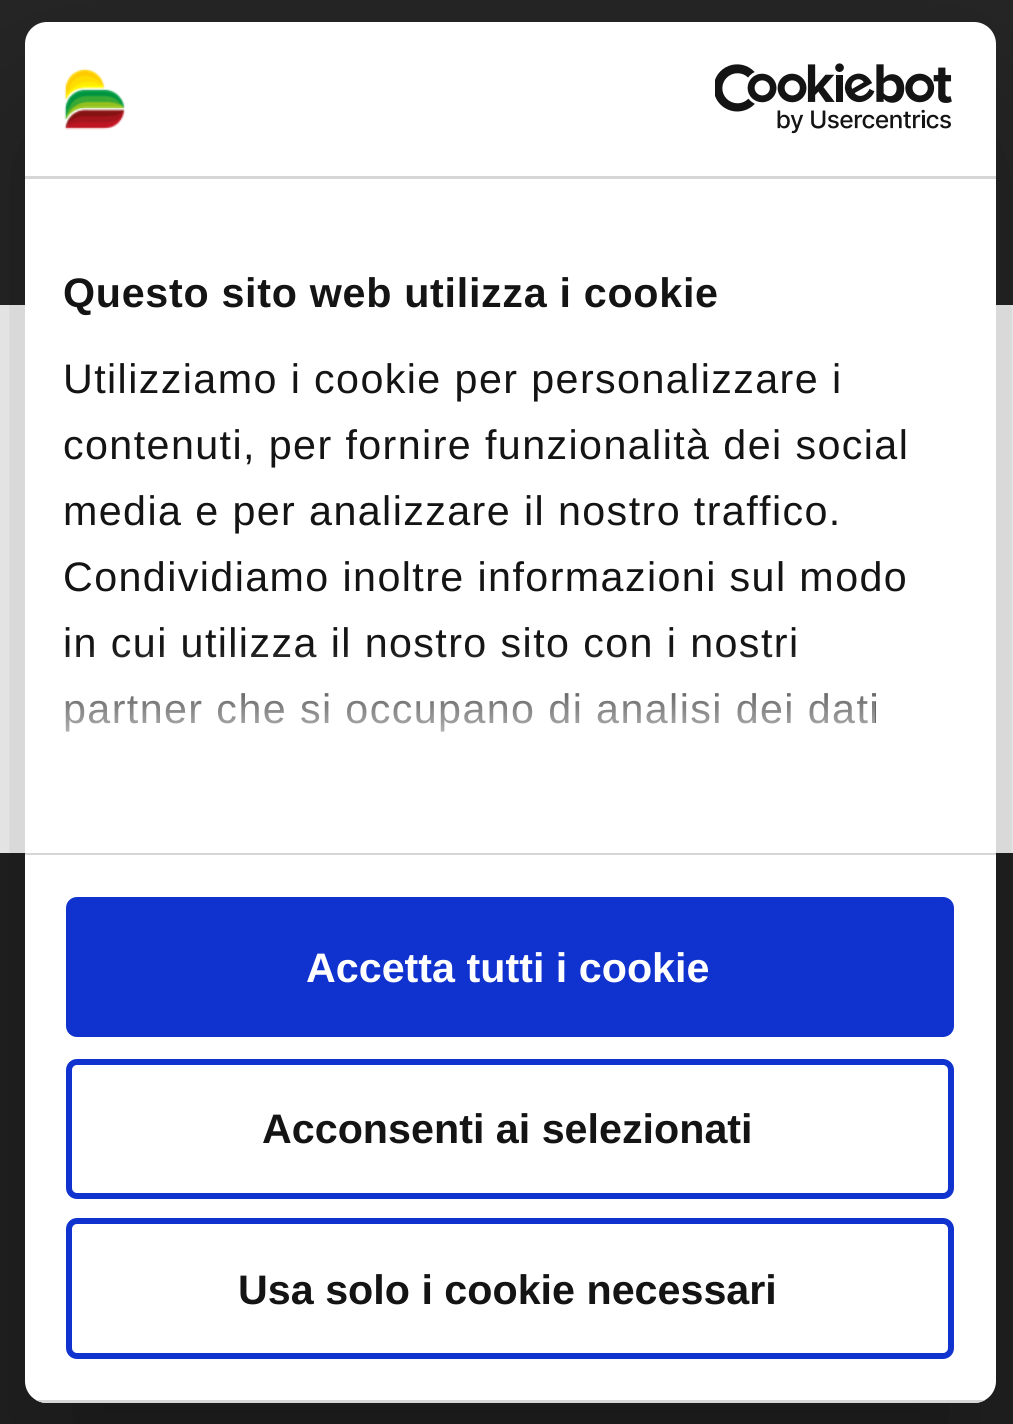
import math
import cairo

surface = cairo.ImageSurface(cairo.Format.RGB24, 1013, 1424)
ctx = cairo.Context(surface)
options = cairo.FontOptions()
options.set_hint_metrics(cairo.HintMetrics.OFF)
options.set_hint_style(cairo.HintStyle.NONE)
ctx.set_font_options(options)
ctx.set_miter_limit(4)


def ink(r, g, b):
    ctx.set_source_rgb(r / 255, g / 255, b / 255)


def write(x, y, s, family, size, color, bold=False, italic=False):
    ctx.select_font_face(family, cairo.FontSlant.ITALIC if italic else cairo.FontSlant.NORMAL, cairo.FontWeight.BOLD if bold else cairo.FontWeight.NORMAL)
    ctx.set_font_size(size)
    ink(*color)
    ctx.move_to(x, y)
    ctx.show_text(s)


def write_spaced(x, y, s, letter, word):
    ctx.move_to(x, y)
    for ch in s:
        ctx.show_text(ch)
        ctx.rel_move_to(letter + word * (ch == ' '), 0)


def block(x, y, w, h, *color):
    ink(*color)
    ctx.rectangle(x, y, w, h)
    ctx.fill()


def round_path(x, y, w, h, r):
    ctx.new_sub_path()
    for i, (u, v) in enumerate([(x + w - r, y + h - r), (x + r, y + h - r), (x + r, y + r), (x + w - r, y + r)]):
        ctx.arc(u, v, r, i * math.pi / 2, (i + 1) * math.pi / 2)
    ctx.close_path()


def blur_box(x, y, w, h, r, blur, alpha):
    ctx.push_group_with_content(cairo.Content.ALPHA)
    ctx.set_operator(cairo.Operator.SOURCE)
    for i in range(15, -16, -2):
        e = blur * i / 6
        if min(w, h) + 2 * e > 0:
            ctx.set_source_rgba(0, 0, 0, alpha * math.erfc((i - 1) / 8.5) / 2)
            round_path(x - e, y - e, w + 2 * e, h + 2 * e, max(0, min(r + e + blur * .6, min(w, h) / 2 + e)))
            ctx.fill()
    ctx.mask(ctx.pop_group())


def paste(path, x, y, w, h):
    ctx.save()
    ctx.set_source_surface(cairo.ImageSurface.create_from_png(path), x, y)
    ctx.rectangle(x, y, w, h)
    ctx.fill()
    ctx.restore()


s1 = dict(family="Liberation Sans", size=41.25, color=(255, 255, 255), bold=True)
s2 = dict(family="Liberation Sans", size=41.25, color=(20, 20, 20), bold=True)

ink(255, 255, 255)
ctx.paint()
block(0, 0, 1013, 305, 38, 38, 38)
block(0, 853, 1013, 571, 34, 34, 34)
ctx.save()
ctx.set_fill_rule(cairo.FillRule.EVEN_ODD)
ctx.new_path()
ctx.move_to(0, 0)
ctx.line_to(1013, 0)
ctx.line_to(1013, 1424)
ctx.line_to(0, 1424)
ctx.close_path()
ctx.move_to(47, 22)
ctx.line_to(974, 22)
ctx.curve_to(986, 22, 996, 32, 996, 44)
ctx.line_to(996, 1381)
ctx.curve_to(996, 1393, 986, 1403, 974, 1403)
ctx.line_to(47, 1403)
ctx.curve_to(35, 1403, 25, 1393, 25, 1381)
ctx.line_to(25, 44)
ctx.curve_to(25, 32, 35, 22, 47, 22)
ctx.close_path()
ctx.clip()
ink(0, 0, 0)
blur_box(25, 110, 971, 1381, 22, 93.5, 0.3)
ctx.restore()
ink(255, 255, 255)
round_path(25, 22, 971, 1381, 22)
ctx.fill()
block(25, 176, 971, 3, 214, 214, 214)
paste("pic1.png", 64, 68, 62, 62)
paste("pic2.png", 715, 63, 237, 71)
block(25, 853, 971, 2, 214, 214, 214)
ctx.select_font_face("Liberation Sans", cairo.FontSlant.NORMAL, cairo.FontWeight.BOLD)
ctx.set_font_size(41.25)
ink(20, 20, 20)
write_spaced(63, 307, "Questo sito web utilizza i cookie", 0.7, 0)
ctx.select_font_face("Liberation Sans")
write_spaced(63, 393, "Utilizziamo i cookie per personalizzare i", 1.4, 0)
write_spaced(63, 459, "contenuti, per fornire funzionalità dei social", 1.4, 0)
write_spaced(63, 525, "media e per analizzare il nostro traffico.", 1.4, 0)
write_spaced(63, 591, "Condividiamo inoltre informazioni sul modo", 1.4, 0)
write_spaced(63, 657, "in cui utilizza il nostro sito con i nostri", 1.4, 0)
write_spaced(63, 723, "partner che si occupano di analisi dei dati", 1.4, 0)
gradient = cairo.LinearGradient(491, 853, 491, 646)
gradient.add_color_stop_rgba(0, 1, 1, 1, 1)
gradient.add_color_stop_rgba(0.5, 1, 1, 1, 0.8)
gradient.add_color_stop_rgba(1, 1, 1, 1, 0)
ctx.set_source(gradient)
ctx.rectangle(65, 649, 810, 83)
ctx.fill()
ctx.save()
round_path(25, 22, 971, 1381, 22)
ctx.clip()
block(36, 1400, 949, 3, 214, 214, 214)
ctx.restore()
ink(16, 50, 207)
round_path(69, 900, 882, 134, 8)
ctx.fill_preserve()
ctx.set_line_width(6)
ctx.stroke()
write(306, 982, "Accetta tutti i cookie", **s1)
round_path(69, 1062, 882, 134, 8)
ink(16, 50, 207)
ctx.stroke()
write(262, 1143, "Acconsenti ai selezionati", **s2)
round_path(69, 1221, 882, 135, 8)
ink(16, 50, 207)
ctx.stroke()
write(238, 1304, "Usa solo i cookie necessari", **s2)
surface.write_to_png("screenshot.png")
